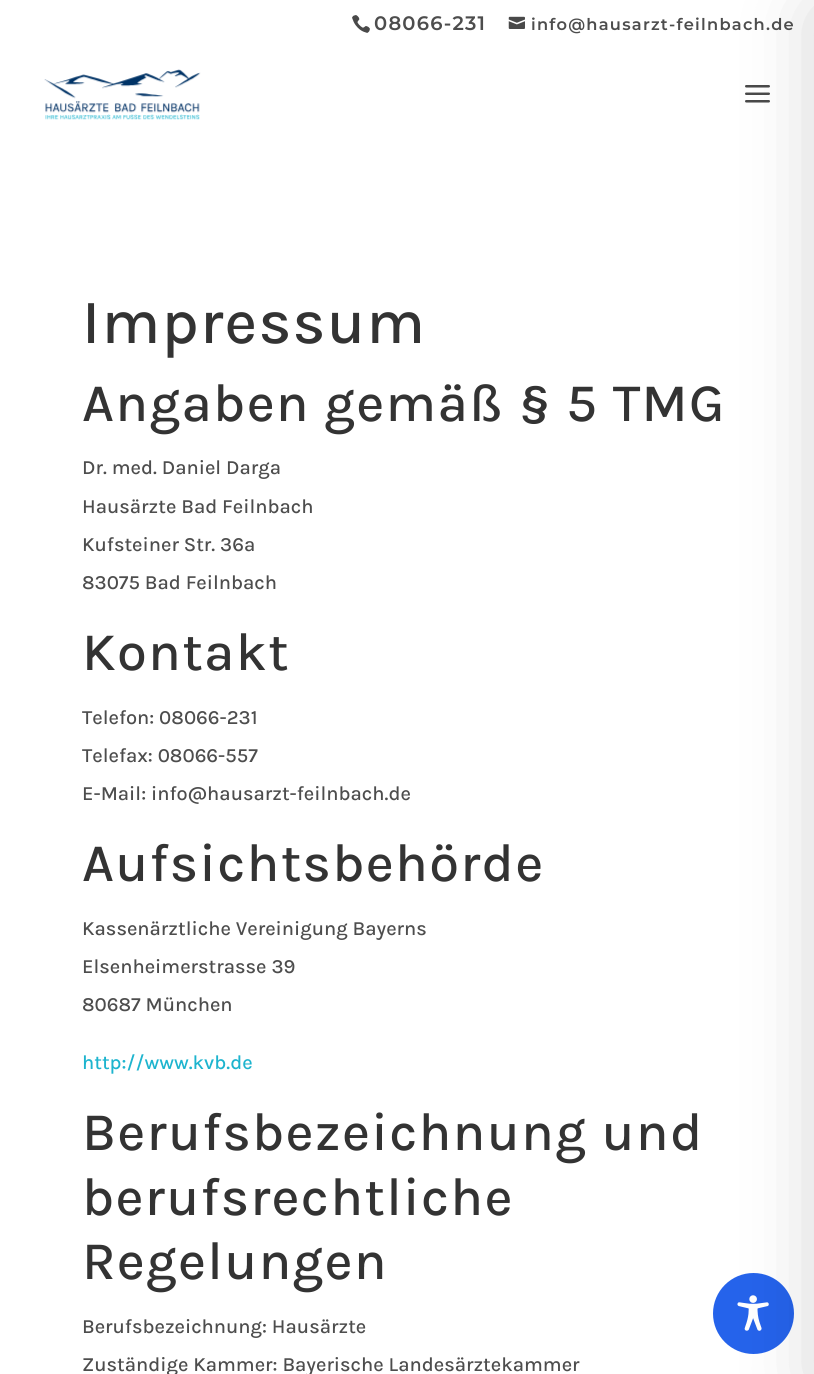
import math
import cairo

surface = cairo.ImageSurface(cairo.Format.RGB24, 814, 1374)
ctx = cairo.Context(surface)
options = cairo.FontOptions()
options.set_hint_metrics(cairo.HintMetrics.OFF)
options.set_hint_style(cairo.HintStyle.NONE)
ctx.set_font_options(options)
ctx.set_miter_limit(4)


def ink(r, g, b):
    ctx.set_source_rgb(r / 255, g / 255, b / 255)


def write(x, y, s, family, size, color, bold=False, italic=False):
    ctx.select_font_face(family, cairo.FontSlant.ITALIC if italic else cairo.FontSlant.NORMAL, cairo.FontWeight.BOLD if bold else cairo.FontWeight.NORMAL)
    ctx.set_font_size(size)
    ink(*color)
    ctx.move_to(x, y)
    ctx.show_text(s)


def write_spaced(x, y, s, letter, word):
    ctx.move_to(x, y)
    for ch in s:
        ctx.show_text(ch)
        ctx.rel_move_to(letter + word * (ch == ' '), 0)


def round_path(x, y, w, h, r):
    ctx.new_sub_path()
    for i, (u, v) in enumerate([(x + w - r, y + h - r), (x + r, y + h - r), (x + r, y + r), (x + w - r, y + r)]):
        ctx.arc(u, v, r, i * math.pi / 2, (i + 1) * math.pi / 2)
    ctx.close_path()


def blur_box(x, y, w, h, r, blur, alpha):
    ctx.push_group_with_content(cairo.Content.ALPHA)
    ctx.set_operator(cairo.Operator.SOURCE)
    for i in range(15, -16, -2):
        e = blur * i / 6
        if min(w, h) + 2 * e > 0:
            ctx.set_source_rgba(0, 0, 0, alpha * math.erfc((i - 1) / 8.5) / 2)
            round_path(x - e, y - e, w + 2 * e, h + 2 * e, max(0, min(r + e + blur * .6, min(w, h) / 2 + e)))
            ctx.fill()
    ctx.mask(ctx.pop_group())


def paste(path, x, y, w, h):
    ctx.save()
    ctx.set_source_surface(cairo.ImageSurface.create_from_png(path), x, y)
    ctx.rectangle(x, y, w, h)
    ctx.fill()
    ctx.restore()


s1 = dict(family="Karla Medium", size=20, color=(77, 77, 77))
s2 = dict(family="Karla Medium", size=20, color=(29, 180, 206))

ink(255, 255, 255)
ctx.paint()
paste("pic4.png", 745, 85, 25, 18)
ink(37, 99, 235)
ctx.arc(753.5, 1313.5, 40.5, 0, 2 * math.pi)
ctx.fill()
paste("pic5.png", 737, 1295, 32, 36)
ink(0, 0, 0)
blur_box(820, 13, 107, 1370, 0, 37.5, 0.2)
paste("pic1.png", 352, 15, 18, 18)
ctx.select_font_face("Montserrat SemiBold")
ctx.set_font_size(19.5)
ink(77, 77, 77)
write_spaced(374, 30, "08066-231", 1.25, 0)
paste("pic2.png", 508, 16, 17, 13)
ctx.set_font_size(16.25)
write_spaced(531, 30, "info@hausarzt-feilnbach.de", 1.25, 0)
paste("pic3.png", 44, 69, 157, 51)
ctx.select_font_face("Karla Medium")
ctx.set_font_size(62.5)
ink(51, 51, 51)
write_spaced(82, 343, "Impressum", 1.25, 0)
ctx.set_font_size(53.75)
write_spaced(82, 421, "Angaben gemäß § 5 TMG", 1.25, 0)
write(82, 474, "Dr. med. Daniel Darga", **s1)
write(82, 513, "Hausärzte Bad Feilnbach", **s1)
write(82, 551, "Kufsteiner Str. 36a", **s1)
write(82, 589, "83075 Bad Feilnbach", **s1)
ctx.set_font_size(53.75)
ink(51, 51, 51)
write_spaced(82, 670, "Kontakt", 1.25, 0)
write(82, 724, "Telefon: 08066-231", **s1)
write(82, 762, "Telefax: 08066-557", **s1)
write(82, 800, "E-Mail: info@hausarzt-feilnbach.de", **s1)
ctx.set_font_size(53.75)
ink(51, 51, 51)
write_spaced(82, 881, "Aufsichtsbehörde", 1.25, 0)
write(82, 935, "Kassenärztliche Vereinigung Bayerns", **s1)
write(82, 973, "Elsenheimerstrasse 39", **s1)
write(82, 1011, "80687 München", **s1)
write(82, 1069, "http://www.kvb.de", **s2)
ctx.set_font_size(53.75)
ink(51, 51, 51)
write_spaced(82, 1150, "Berufsbezeichnung und", 1.25, 0)
write_spaced(82, 1215, "berufsrechtliche", 1.25, 0)
write_spaced(82, 1279, "Regelungen", 1.25, 0)
write(82, 1333, "Berufsbezeichnung: Hausärzte", **s1)
write(82, 1371, "Zuständige Kammer: Bayerische Landesärztekammer", **s1)
surface.write_to_png("screenshot.png")
